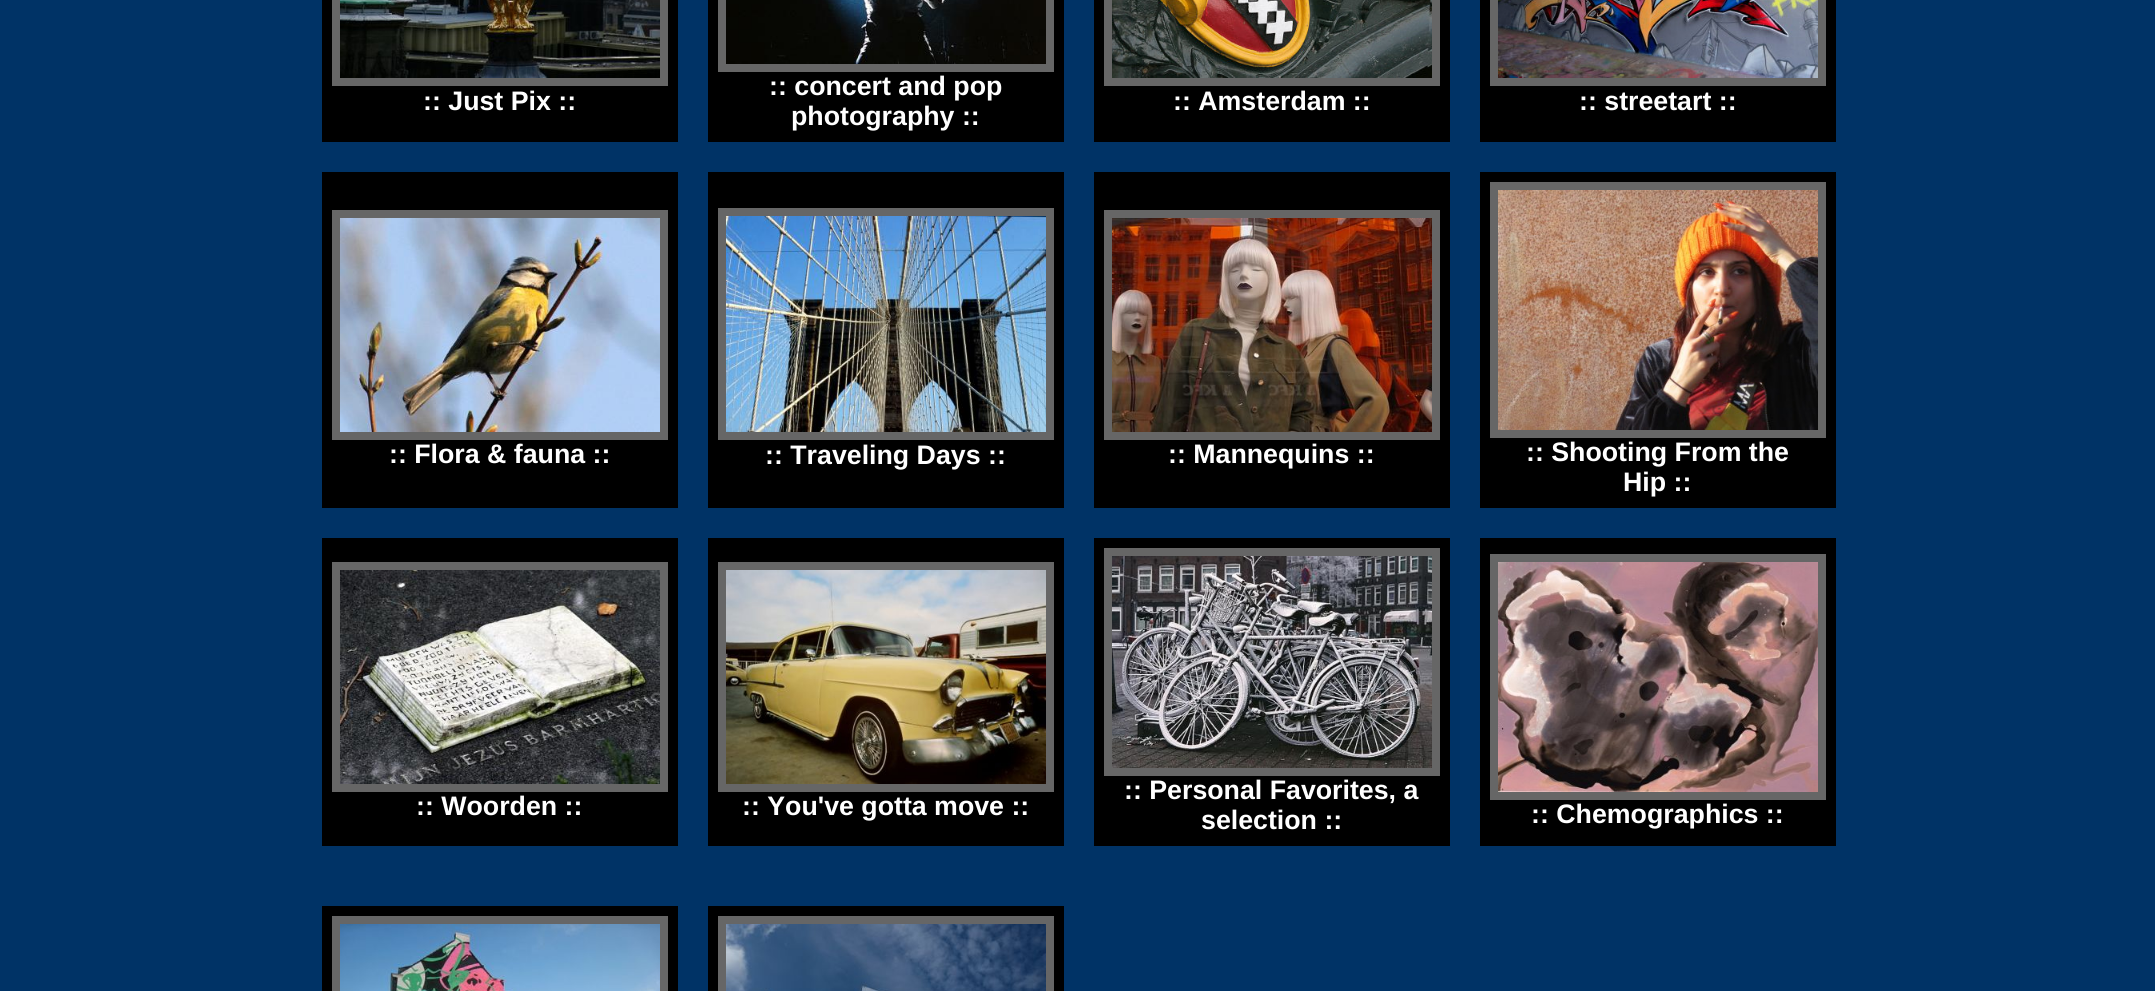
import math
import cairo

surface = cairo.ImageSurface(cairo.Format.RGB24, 2155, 991)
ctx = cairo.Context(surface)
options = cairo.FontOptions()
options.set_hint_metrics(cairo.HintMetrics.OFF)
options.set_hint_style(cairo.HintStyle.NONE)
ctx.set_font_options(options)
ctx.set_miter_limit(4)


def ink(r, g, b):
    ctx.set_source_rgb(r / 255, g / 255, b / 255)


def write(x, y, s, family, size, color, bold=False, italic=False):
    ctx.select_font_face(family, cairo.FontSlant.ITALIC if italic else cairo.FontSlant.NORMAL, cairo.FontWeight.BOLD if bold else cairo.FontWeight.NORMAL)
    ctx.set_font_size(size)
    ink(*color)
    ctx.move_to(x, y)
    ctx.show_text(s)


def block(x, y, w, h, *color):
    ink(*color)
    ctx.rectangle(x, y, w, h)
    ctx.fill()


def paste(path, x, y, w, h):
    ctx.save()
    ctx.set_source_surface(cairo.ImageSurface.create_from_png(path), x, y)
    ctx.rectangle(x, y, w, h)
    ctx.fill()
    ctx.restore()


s1 = dict(family="Liberation Sans", size=26.75, color=(255, 255, 255), bold=True)

ink(0, 51, 102)
ctx.paint()
block(322, 0, 356, 142, 0, 0, 0)
ctx.rectangle(336, -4, 328, 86)
ink(102, 102, 102)
ctx.set_line_width(8)
ctx.stroke()
paste("pic1.png", 340, 0, 320, 78)
write(423, 110, ":: Just Pix ::", **s1)
block(708, 0, 356, 142, 0, 0, 0)
ctx.rectangle(722, -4, 328, 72)
ink(102, 102, 102)
ctx.stroke()
paste("pic2.png", 726, 0, 320, 64)
write(769, 95, ":: concert and pop", **s1)
write(791, 125, "photography ::", **s1)
block(1094, 0, 356, 142, 0, 0, 0)
ctx.rectangle(1108, -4, 328, 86)
ink(102, 102, 102)
ctx.stroke()
paste("pic3.png", 1112, 0, 320, 78)
write(1173, 110, ":: Amsterdam ::", **s1)
block(1480, 0, 356, 142, 0, 0, 0)
ctx.rectangle(1494, -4, 328, 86)
ink(102, 102, 102)
ctx.stroke()
paste("pic4.png", 1498, 0, 320, 78)
write(1579, 110, ":: streetart ::", **s1)
block(322, 172, 356, 336, 0, 0, 0)
ctx.rectangle(336, 214, 328, 222)
ink(102, 102, 102)
ctx.stroke()
paste("pic5.png", 340, 218, 320, 214)
write(389, 463, ":: Flora & fauna ::", **s1)
block(708, 172, 356, 336, 0, 0, 0)
ctx.rectangle(722, 212, 328, 224)
ink(102, 102, 102)
ctx.stroke()
paste("pic6.png", 726, 216, 320, 216)
write(765, 464, ":: Traveling Days ::", **s1)
block(1094, 172, 356, 336, 0, 0, 0)
ctx.rectangle(1108, 214, 328, 222)
ink(102, 102, 102)
ctx.stroke()
paste("pic7.png", 1112, 218, 320, 214)
write(1168, 463, ":: Mannequins ::", **s1)
block(1480, 172, 356, 336, 0, 0, 0)
ctx.rectangle(1494, 186, 328, 248)
ink(102, 102, 102)
ctx.stroke()
paste("pic8.png", 1498, 190, 320, 240)
write(1526, 461, ":: Shooting From the", **s1)
write(1623, 491, "Hip ::", **s1)
block(322, 538, 356, 308, 0, 0, 0)
ctx.rectangle(336, 566, 328, 222)
ink(102, 102, 102)
ctx.stroke()
paste("pic9.png", 340, 570, 320, 214)
write(416, 815, ":: Woorden ::", **s1)
block(708, 538, 356, 308, 0, 0, 0)
ctx.rectangle(722, 566, 328, 222)
ink(102, 102, 102)
ctx.stroke()
paste("pic10.png", 726, 570, 320, 214)
write(742, 815, ":: You've gotta move ::", **s1)
block(1094, 538, 356, 308, 0, 0, 0)
ctx.rectangle(1108, 552, 328, 220)
ink(102, 102, 102)
ctx.stroke()
paste("pic11.png", 1112, 556, 320, 212)
write(1124, 799, ":: Personal Favorites, a", **s1)
write(1201, 829, "selection ::", **s1)
block(1480, 538, 356, 308, 0, 0, 0)
ctx.rectangle(1494, 558, 328, 238)
ink(102, 102, 102)
ctx.stroke()
paste("pic12.png", 1498, 562, 320, 230)
write(1531, 823, ":: Chemographics ::", **s1)
block(322, 906, 356, 85, 0, 0, 0)
ctx.rectangle(336, 920, 328, 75)
ink(102, 102, 102)
ctx.stroke()
paste("pic13.png", 340, 924, 320, 67)
block(708, 906, 356, 85, 0, 0, 0)
ctx.rectangle(722, 920, 328, 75)
ink(102, 102, 102)
ctx.stroke()
paste("pic14.png", 726, 924, 320, 67)
surface.write_to_png("screenshot.png")
